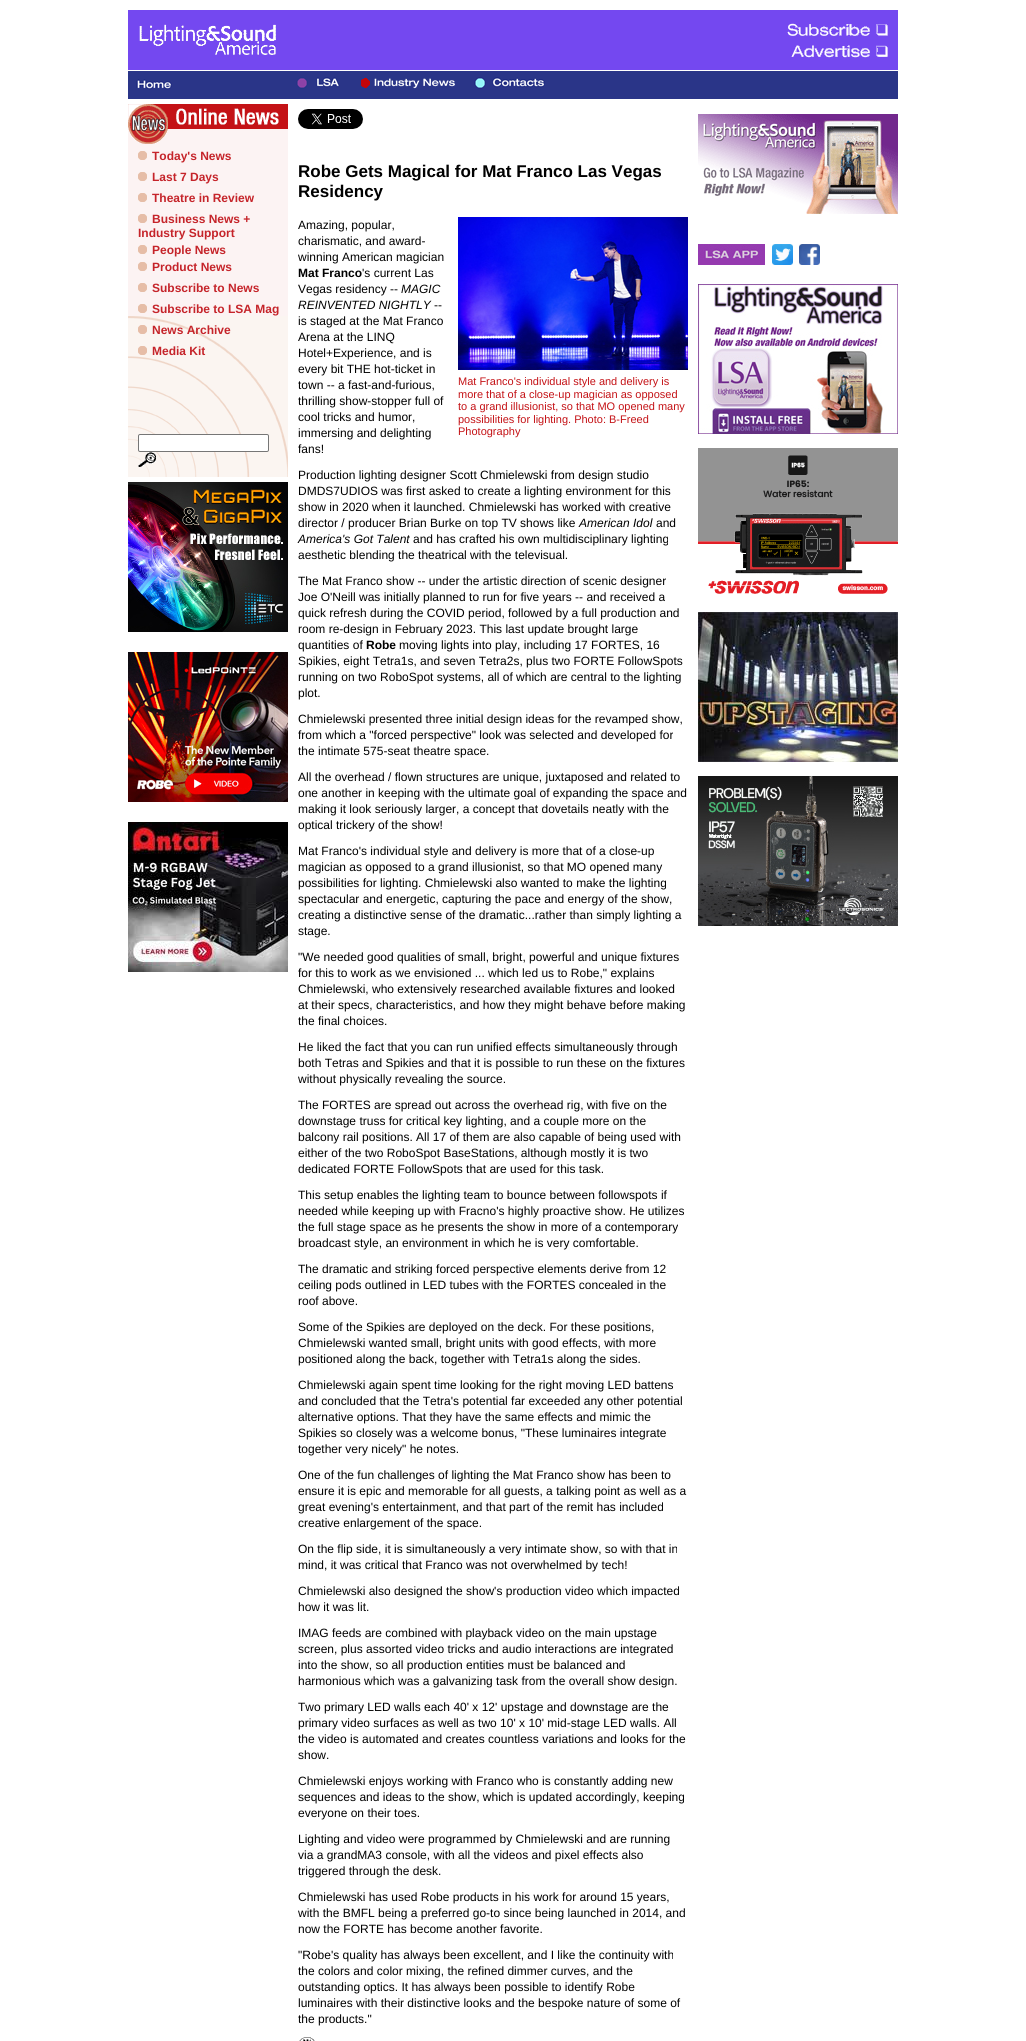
import math
import cairo

surface = cairo.ImageSurface(cairo.Format.RGB24, 1026, 2041)
ctx = cairo.Context(surface)
options = cairo.FontOptions()
options.set_hint_metrics(cairo.HintMetrics.OFF)
options.set_hint_style(cairo.HintStyle.NONE)
ctx.set_font_options(options)
ctx.set_miter_limit(4)


def ink(r, g, b):
    ctx.set_source_rgb(r / 255, g / 255, b / 255)


def write(x, y, s, family, size, color, bold=False, italic=False):
    ctx.select_font_face(family, cairo.FontSlant.ITALIC if italic else cairo.FontSlant.NORMAL, cairo.FontWeight.BOLD if bold else cairo.FontWeight.NORMAL)
    ctx.set_font_size(size)
    ink(*color)
    ctx.move_to(x, y)
    ctx.show_text(s)


def block(x, y, w, h, *color):
    ink(*color)
    ctx.rectangle(x, y, w, h)
    ctx.fill()


def round_path(x, y, w, h, r):
    ctx.new_sub_path()
    for i, (u, v) in enumerate([(x + w - r, y + h - r), (x + r, y + h - r), (x + r, y + r), (x + w - r, y + r)]):
        ctx.arc(u, v, r, i * math.pi / 2, (i + 1) * math.pi / 2)
    ctx.close_path()


def paste(path, x, y, w, h):
    ctx.save()
    ctx.set_source_surface(cairo.ImageSurface.create_from_png(path), x, y)
    ctx.rectangle(x, y, w, h)
    ctx.fill()
    ctx.restore()


s1 = dict(family="Liberation Sans", size=12, color=(197, 36, 42), bold=True)
s2 = dict(family="Liberation Sans", size=17, color=(0, 0, 0), bold=True)
s3 = dict(family="Liberation Sans", size=12, color=(0, 0, 0))
s4 = dict(family="Liberation Sans", size=12, color=(0, 0, 0), bold=True)
s5 = dict(family="Liberation Sans", size=12, color=(0, 0, 0), italic=True)
s6 = dict(family="Liberation Sans", size=11, color=(196, 18, 22))

ink(255, 255, 255)
ctx.paint()
block(128, 10, 770, 60, 116, 72, 240)
paste("pic1.png", 139, 24, 137, 31)
paste("pic2.png", 787, 23, 101, 13)
paste("pic3.png", 791, 45, 97, 13)
block(128, 71, 770, 28, 42, 53, 136)
paste("pic4.png", 136, 79, 36, 11)
paste("pic5.png", 296, 77, 44, 12)
paste("pic6.png", 361, 78, 94, 11)
paste("pic7.png", 474, 77, 71, 12)
block(128, 129, 160, 187, 252, 243, 243)
paste("pic8.png", 128, 316, 160, 161)
block(155, 104, 133, 25, 196, 18, 22)
paste("pic9.png", 128, 104, 40, 25)
paste("pic10.png", 176, 108, 103, 17)
paste("pic11.png", 128, 129, 5, 9)
paste("pic12.png", 133, 129, 35, 15)
paste("pic13.png", 138, 151, 9, 9)
write(152, 160, "Today's News", **s1)
paste("pic13.png", 138, 172, 9, 9)
write(152, 181, "Last 7 Days", **s1)
paste("pic13.png", 138, 193, 9, 9)
write(152, 202, "Theatre in Review", **s1)
paste("pic13.png", 138, 214, 9, 9)
write(152, 223, "Business News +", **s1)
write(138, 237, "Industry Support", **s1)
paste("pic13.png", 138, 245, 9, 9)
write(152, 254, "People News", **s1)
paste("pic13.png", 138, 262, 9, 9)
write(152, 271, "Product News", **s1)
paste("pic13.png", 138, 283, 9, 9)
write(152, 292, "Subscribe to News", **s1)
paste("pic13.png", 138, 304, 9, 9)
write(152, 313, "Subscribe to LSA Mag", **s1)
paste("pic14.png", 138, 325, 9, 9)
write(152, 334, "News Archive", **s1)
paste("pic14.png", 138, 346, 9, 9)
write(152, 355, "Media Kit", **s1)
ink(255, 255, 255)
round_path(138.5, 434.5, 130, 17, 1.5)
ctx.fill_preserve()
ink(118, 118, 118)
ctx.set_line_width(1)
ctx.stroke()
paste("pic15.png", 138, 452, 18, 15)
paste("pic16.png", 128, 482, 160, 490)
paste("pic17.png", 298, 109, 65, 20)
write(298, 177, "Robe Gets Magical for Mat Franco Las Vegas", **s2)
write(298, 197, "Residency", **s2)
write(298, 229, "Amazing, popular,", **s3)
write(298, 245, "charismatic, and award-", **s3)
write(298, 261, "winning American magician", **s3)
write(298, 277, "Mat Franco", **s4)
write(362, 277, "'s current Las", **s3)
write(298, 293, "Vegas residency --", **s3)
write(401, 293, "MAGIC", **s5)
write(298, 309, "REINVENTED NIGHTLY", **s5)
write(434, 309, "--", **s3)
write(298, 325, "is staged at the Mat Franco", **s3)
write(298, 341, "Arena at the LINQ", **s3)
write(298, 357, "Hotel+Experience, and is", **s3)
write(298, 373, "every bit THE hot-ticket in", **s3)
write(298, 389, "town -- a fast-and-furious,", **s3)
write(298, 405, "thrilling show-stopper full of", **s3)
write(298, 421, "cool tricks and humor,", **s3)
write(298, 437, "immersing and delighting", **s3)
write(298, 453, "fans!", **s3)
paste("pic18.png", 458, 217, 230, 153)
write(458, 385, "Mat Franco's individual style and delivery is", **s6)
write(458, 398, "more that of a close-up magician as opposed", **s6)
write(458, 410, "to a grand illusionist, so that MO opened many", **s6)
write(458, 423, "possibilities for lighting. Photo: B-Freed", **s6)
write(458, 435, "Photography", **s6)
write(298, 479, "Production lighting designer Scott Chmielewski from design studio", **s3)
write(298, 495, "DMDS7UDIOS was first asked to create a lighting environment for this", **s3)
write(298, 511, "show in 2020 when it launched. Chmielewski has worked with creative", **s3)
write(298, 527, "director / producer Brian Burke on top TV shows like", **s3)
write(579, 527, "American Idol", **s5)
write(656, 527, "and", **s3)
write(298, 543, "America's Got Talent", **s5)
write(413, 543, "and has crafted his own multidisciplinary lighting", **s3)
write(298, 559, "aesthetic blending the theatrical with the televisual.", **s3)
write(298, 585, "The Mat Franco show -- under the artistic direction of scenic designer", **s3)
write(298, 601, "Joe O'Neill was initially planned to run for five years -- and received a", **s3)
write(298, 617, "quick refresh during the COVID period, followed by a full production and", **s3)
write(298, 633, "room re-design in February 2023. This last update brought large", **s3)
write(298, 649, "quantities of", **s3)
write(366, 649, "Robe", **s4)
write(399, 649, "moving lights into play, including 17 FORTES, 16", **s3)
write(298, 665, "Spikies, eight Tetra1s, and seven Tetra2s, plus two FORTE FollowSpots", **s3)
write(298, 681, "running on two RoboSpot systems, all of which are central to the lighting", **s3)
write(298, 697, "plot.", **s3)
write(298, 723, "Chmielewski presented three initial design ideas for the revamped show,", **s3)
write(298, 739, "from which a \"forced perspective\" look was selected and developed for", **s3)
write(298, 755, "the intimate 575-seat theatre space.", **s3)
write(298, 781, "All the overhead / flown structures are unique, juxtaposed and related to", **s3)
write(298, 797, "one another in keeping with the ultimate goal of expanding the space and", **s3)
write(298, 813, "making it look seriously larger, a concept that dovetails neatly with the", **s3)
write(298, 829, "optical trickery of the show!", **s3)
write(298, 855, "Mat Franco's individual style and delivery is more that of a close-up", **s3)
write(298, 871, "magician as opposed to a grand illusionist, so that MO opened many", **s3)
write(298, 887, "possibilities for lighting. Chmielewski also wanted to make the lighting", **s3)
write(298, 903, "spectacular and energetic, capturing the pace and energy of the show,", **s3)
write(298, 919, "creating a distinctive sense of the dramatic...rather than simply lighting a", **s3)
write(298, 935, "stage.", **s3)
write(298, 961, "\"We needed good qualities of small, bright, powerful and unique fixtures", **s3)
write(298, 977, "for this to work as we envisioned ... which led us to Robe,\" explains", **s3)
write(298, 993, "Chmielewski, who extensively researched available fixtures and looked", **s3)
write(298, 1009, "at their specs, characteristics, and how they might behave before making", **s3)
write(298, 1025, "the final choices.", **s3)
write(298, 1051, "He liked the fact that you can run unified effects simultaneously through", **s3)
write(298, 1067, "both Tetras and Spikies and that it is possible to run these on the fixtures", **s3)
write(298, 1083, "without physically revealing the source.", **s3)
write(298, 1109, "The FORTES are spread out across the overhead rig, with five on the", **s3)
write(298, 1125, "downstage truss for critical key lighting, and a couple more on the", **s3)
write(298, 1141, "balcony rail positions. All 17 of them are also capable of being used with", **s3)
write(298, 1157, "either of the two RoboSpot BaseStations, although mostly it is two", **s3)
write(298, 1173, "dedicated FORTE FollowSpots that are used for this task.", **s3)
write(298, 1199, "This setup enables the lighting team to bounce between followspots if", **s3)
write(298, 1215, "needed while keeping up with Fracno's highly proactive show. He utilizes", **s3)
write(298, 1231, "the full stage space as he presents the show in more of a contemporary", **s3)
write(298, 1247, "broadcast style, an environment in which he is very comfortable.", **s3)
write(298, 1273, "The dramatic and striking forced perspective elements derive from 12", **s3)
write(298, 1289, "ceiling pods outlined in LED tubes with the FORTES concealed in the", **s3)
write(298, 1305, "roof above.", **s3)
write(298, 1331, "Some of the Spikies are deployed on the deck. For these positions,", **s3)
write(298, 1347, "Chmielewski wanted small, bright units with good effects, with more", **s3)
write(298, 1363, "positioned along the back, together with Tetra1s along the sides.", **s3)
write(298, 1389, "Chmielewski again spent time looking for the right moving LED battens", **s3)
write(298, 1405, "and concluded that the Tetra's potential far exceeded any other potential", **s3)
write(298, 1421, "alternative options. That they have the same effects and mimic the", **s3)
write(298, 1437, "Spikies so closely was a welcome bonus, \"These luminaires integrate", **s3)
write(298, 1453, "together very nicely\" he notes.", **s3)
write(298, 1479, "One of the fun challenges of lighting the Mat Franco show has been to", **s3)
write(298, 1495, "ensure it is epic and memorable for all guests, a talking point as well as a", **s3)
write(298, 1511, "great evening's entertainment, and that part of the remit has included", **s3)
write(298, 1527, "creative enlargement of the space.", **s3)
write(298, 1553, "On the flip side, it is simultaneously a very intimate show, so with that in", **s3)
write(298, 1569, "mind, it was critical that Franco was not overwhelmed by tech!", **s3)
write(298, 1595, "Chmielewski also designed the show's production video which impacted", **s3)
write(298, 1611, "how it was lit.", **s3)
write(298, 1637, "IMAG feeds are combined with playback video on the main upstage", **s3)
write(298, 1653, "screen, plus assorted video tricks and audio interactions are integrated", **s3)
write(298, 1669, "into the show, so all production entities must be balanced and", **s3)
write(298, 1685, "harmonious which was a galvanizing task from the overall show design.", **s3)
write(298, 1711, "Two primary LED walls each 40' x 12' upstage and downstage are the", **s3)
write(298, 1727, "primary video surfaces as well as two 10' x 10' mid-stage LED walls. All", **s3)
write(298, 1743, "the video is automated and creates countless variations and looks for the", **s3)
write(298, 1759, "show.", **s3)
write(298, 1785, "Chmielewski enjoys working with Franco who is constantly adding new", **s3)
write(298, 1801, "sequences and ideas to the show, which is updated accordingly, keeping", **s3)
write(298, 1817, "everyone on their toes.", **s3)
write(298, 1843, "Lighting and video were programmed by Chmielewski and are running", **s3)
write(298, 1859, "via a grandMA3 console, with all the videos and pixel effects also", **s3)
write(298, 1875, "triggered through the desk.", **s3)
write(298, 1901, "Chmielewski has used Robe products in his work for around 15 years,", **s3)
write(298, 1917, "with the BMFL being a preferred go-to since being launched in 2014, and", **s3)
write(298, 1933, "now the FORTE has become another favorite.", **s3)
write(298, 1959, "\"Robe's quality has always been excellent, and I like the continuity with", **s3)
write(298, 1975, "the colors and color mixing, the refined dimmer curves, and the", **s3)
write(298, 1991, "outstanding optics. It has always been possible to identify Robe", **s3)
write(298, 2007, "luminaires with their distinctive looks and the bespoke nature of some of", **s3)
write(298, 2023, "the products.\"", **s3)
paste("pic19.png", 299, 2037, 16, 4)
paste("pic20.png", 698, 114, 200, 100)
paste("pic21.png", 698, 244, 67, 21)
paste("pic22.png", 772, 244, 21, 21)
paste("pic23.png", 799, 244, 21, 21)
paste("pic24.png", 698, 284, 200, 642)
surface.write_to_png("screenshot.png")
